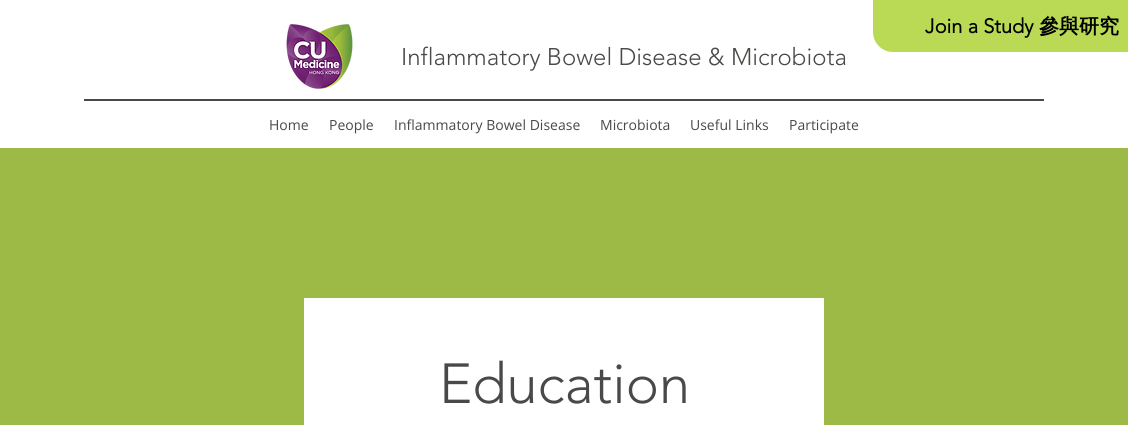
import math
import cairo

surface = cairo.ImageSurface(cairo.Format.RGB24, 1128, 425)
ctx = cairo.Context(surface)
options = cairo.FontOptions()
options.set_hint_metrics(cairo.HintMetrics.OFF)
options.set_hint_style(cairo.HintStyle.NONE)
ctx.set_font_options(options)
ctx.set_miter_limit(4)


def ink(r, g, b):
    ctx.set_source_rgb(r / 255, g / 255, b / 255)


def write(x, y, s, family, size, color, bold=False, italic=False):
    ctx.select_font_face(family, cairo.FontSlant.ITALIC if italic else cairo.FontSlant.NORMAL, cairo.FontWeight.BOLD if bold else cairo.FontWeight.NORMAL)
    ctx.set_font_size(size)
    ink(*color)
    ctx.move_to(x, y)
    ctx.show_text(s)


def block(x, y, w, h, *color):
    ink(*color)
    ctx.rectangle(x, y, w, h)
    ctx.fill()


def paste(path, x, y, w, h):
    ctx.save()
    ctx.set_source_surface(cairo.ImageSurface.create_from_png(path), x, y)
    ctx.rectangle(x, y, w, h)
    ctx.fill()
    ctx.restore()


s1 = dict(family="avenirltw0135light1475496", size=20, color=(0, 0, 0), bold=True)
s2 = dict(family="WenQuanYi Zen Hei", size=20, color=(0, 0, 0), bold=True)
s3 = dict(family="avenirltw0135light1475496 Light", size=24, color=(73, 73, 71))
s4 = dict(family="Open Sans", size=14, color=(73, 73, 71))
s5 = dict(family="avenirltw0135light1475496 Light", size=56, color=(73, 73, 71))

ink(255, 255, 255)
ctx.paint()
ink(186, 218, 85)
ctx.new_path()
ctx.move_to(873, 0)
ctx.line_to(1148, 0)
ctx.line_to(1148, 32)
ctx.curve_to(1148, 43, 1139, 52, 1128, 52)
ctx.line_to(893, 52)
ctx.curve_to(882, 52, 873, 43, 873, 32)
ctx.close_path()
ctx.fill()
write(925, 33, "Join a Study", **s1)
write(1039, 33, "參與研究", **s2)
paste("pic1.png", 286, 24, 67, 65)
write(401, 65, "Inflammatory Bowel Disease & Microbiota", **s3)
block(84, 99, 960, 2, 73, 73, 71)
write(269, 130, "Home", **s4)
write(329, 130, "People", **s4)
write(394, 130, "Inflammatory Bowel Disease", **s4)
write(600, 130, "Microbiota", **s4)
write(690, 130, "Useful Links", **s4)
write(789, 130, "Participate", **s4)
block(0, 148, 1128, 277, 157, 185, 70)
block(304, 298, 520, 127, 255, 255, 255)
write(439, 403, "Education", **s5)
surface.write_to_png("screenshot.png")
